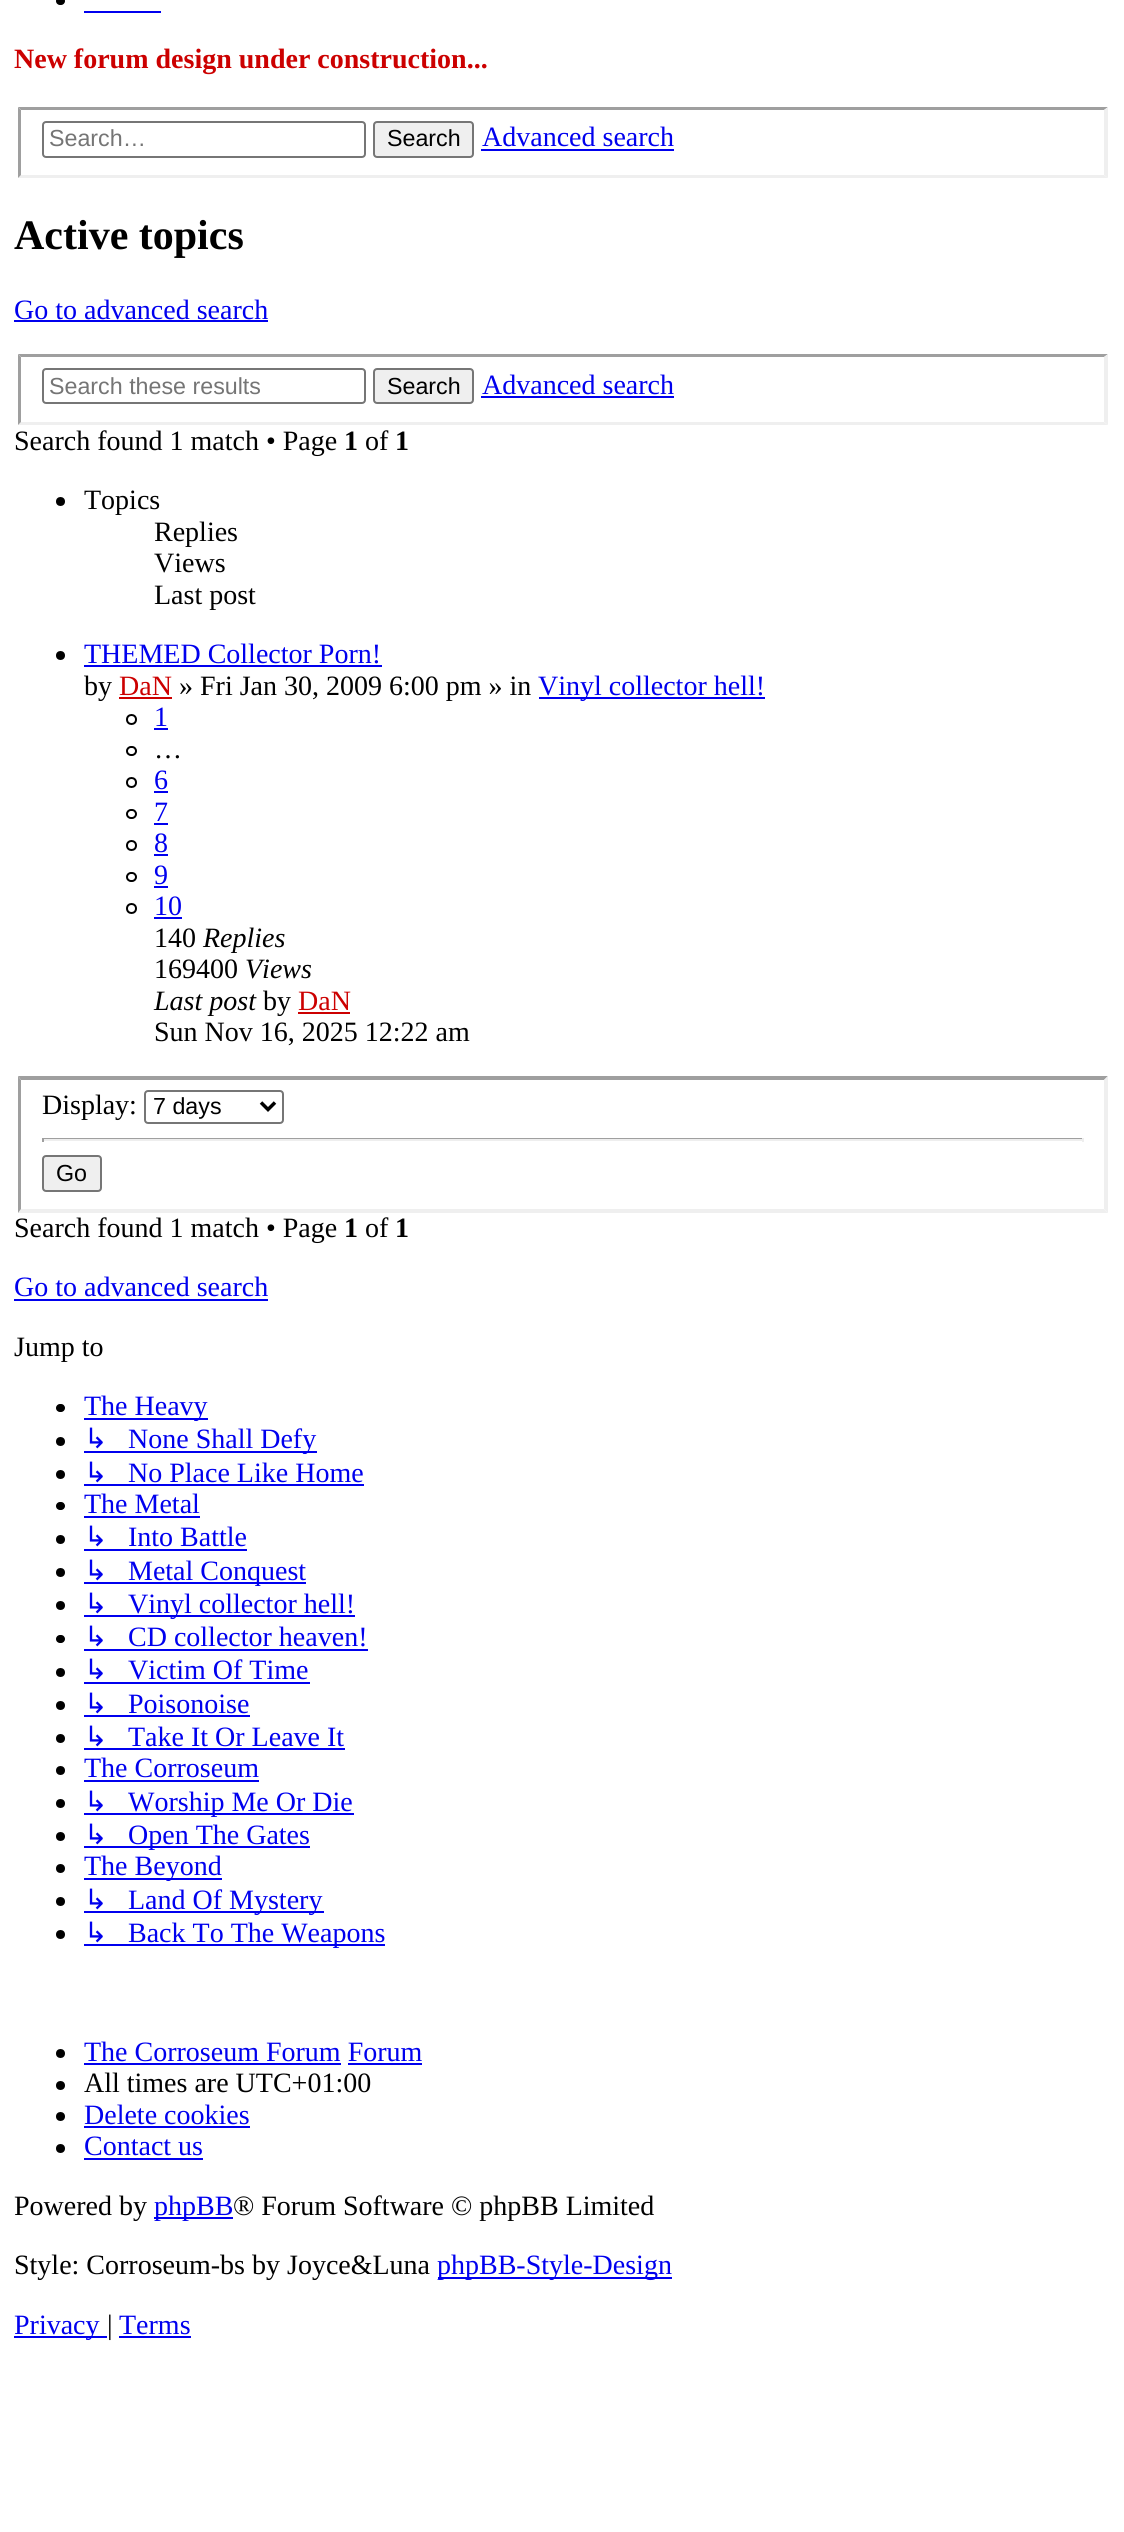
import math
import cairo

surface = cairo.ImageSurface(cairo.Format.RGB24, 1124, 2532)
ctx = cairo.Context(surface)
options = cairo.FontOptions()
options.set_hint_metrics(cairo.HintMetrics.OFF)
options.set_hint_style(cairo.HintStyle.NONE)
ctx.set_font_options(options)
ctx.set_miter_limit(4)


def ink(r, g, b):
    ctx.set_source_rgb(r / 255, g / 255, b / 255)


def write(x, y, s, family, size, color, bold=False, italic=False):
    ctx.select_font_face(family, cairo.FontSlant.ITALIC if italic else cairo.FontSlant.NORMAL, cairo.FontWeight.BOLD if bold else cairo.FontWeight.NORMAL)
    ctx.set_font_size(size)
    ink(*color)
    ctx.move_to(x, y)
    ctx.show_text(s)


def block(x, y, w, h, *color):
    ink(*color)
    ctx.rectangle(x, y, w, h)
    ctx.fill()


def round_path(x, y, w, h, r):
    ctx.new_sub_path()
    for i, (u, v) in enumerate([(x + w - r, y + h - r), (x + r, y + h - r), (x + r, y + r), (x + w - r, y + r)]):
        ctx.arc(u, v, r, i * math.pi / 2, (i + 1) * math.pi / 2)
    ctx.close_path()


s1 = dict(family="Liberation Serif", size=28, color=(204, 0, 0), bold=True)
s2 = dict(family="Liberation Sans", size=23.25, color=(117, 117, 117))
s3 = dict(family="Liberation Sans", size=23.25, color=(0, 0, 0))
s4 = dict(family="Liberation Serif", size=28, color=(0, 0, 238))
s5 = dict(family="Liberation Serif", size=42, color=(0, 0, 0), bold=True)
s6 = dict(family="Liberation Serif", size=28, color=(0, 0, 0))
s7 = dict(family="Liberation Serif", size=28, color=(0, 0, 0), bold=True)
s8 = dict(family="Liberation Serif", size=28, color=(204, 0, 0))
s9 = dict(family="Liberation Serif", size=28, color=(0, 0, 0), italic=True)
s10 = dict(family="DejaVu Sans", size=28, color=(0, 0, 238))

ink(255, 255, 255)
ctx.paint()
ink(0, 0, 0)
round_path(56, -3, 9, 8, 4)
ctx.fill()
block(84, 11, 77, 2, 0, 0, 238)
write(14, 68, "New forum design under construction...", **s1)
ink(159, 159, 159)
ctx.new_path()
ctx.move_to(18, 107)
ctx.line_to(1108, 107)
ctx.line_to(1104, 110)
ctx.line_to(21, 110)
ctx.close_path()
ctx.fill()
ink(239, 239, 239)
ctx.new_path()
ctx.move_to(1108, 107)
ctx.line_to(1108, 178)
ctx.line_to(1104, 175)
ctx.line_to(1104, 110)
ctx.close_path()
ctx.fill()
ctx.new_path()
ctx.move_to(1108, 178)
ctx.line_to(18, 178)
ctx.line_to(21, 175)
ctx.line_to(1104, 175)
ctx.close_path()
ctx.fill()
ink(159, 159, 159)
ctx.new_path()
ctx.move_to(18, 178)
ctx.line_to(18, 107)
ctx.line_to(21, 110)
ctx.line_to(21, 175)
ctx.close_path()
ctx.fill()
round_path(43, 122, 322, 35, 3)
ink(118, 118, 118)
ctx.stroke()
write(49, 146, "Search…", **s2)
ink(239, 239, 239)
round_path(374, 122, 99, 35, 3)
ctx.fill_preserve()
ink(118, 118, 118)
ctx.stroke()
write(387, 146, "Search", **s3)
write(482, 146, "Advanced search", **s4)
block(481, 149, 193, 2, 0, 0, 238)
write(14, 249, "Active topics", **s5)
write(14, 319, "Go to advanced search", **s4)
block(14, 320, 254, 2, 0, 0, 238)
ink(159, 159, 159)
ctx.new_path()
ctx.move_to(18, 354)
ctx.line_to(1108, 354)
ctx.line_to(1104, 357)
ctx.line_to(21, 357)
ctx.close_path()
ctx.fill()
ink(239, 239, 239)
ctx.new_path()
ctx.move_to(1108, 354)
ctx.line_to(1108, 425)
ctx.line_to(1104, 422)
ctx.line_to(1104, 357)
ctx.close_path()
ctx.fill()
ctx.new_path()
ctx.move_to(1108, 425)
ctx.line_to(18, 425)
ctx.line_to(21, 422)
ctx.line_to(1104, 422)
ctx.close_path()
ctx.fill()
ink(159, 159, 159)
ctx.new_path()
ctx.move_to(18, 425)
ctx.line_to(18, 354)
ctx.line_to(21, 357)
ctx.line_to(21, 422)
ctx.close_path()
ctx.fill()
round_path(43, 369, 322, 34, 3)
ink(118, 118, 118)
ctx.stroke()
write(49, 394, "Search these results", **s2)
ink(239, 239, 239)
round_path(374, 369, 99, 34, 3)
ctx.fill_preserve()
ink(118, 118, 118)
ctx.stroke()
write(387, 394, "Search", **s3)
write(482, 394, "Advanced search", **s4)
block(481, 396, 193, 2, 0, 0, 238)
write(14, 450, "Search found 1 match • Page", **s6)
write(344, 450, "1", **s7)
write(365, 450, "of", **s6)
write(395, 450, "1", **s7)
ctx.new_path()
ctx.arc(60.5, 501.5, 4.5, 0, 2 * math.pi)
ctx.fill()
write(84, 509, "Topics", **s6)
write(154, 541, "Replies", **s6)
write(154, 572, "Views", **s6)
write(154, 604, "Last post", **s6)
ctx.new_path()
ctx.arc(60.5, 655.5, 4.5, 0, 2 * math.pi)
ctx.fill()
write(84, 663, "THEMED Collector Porn!", **s4)
block(84, 665, 298, 2, 0, 0, 238)
write(84, 695, "by", **s6)
write(119, 695, "DaN", **s8)
block(119, 697, 53, 2, 204, 0, 0)
write(179, 695, "» Fri Jan 30, 2009 6:00 pm » in", **s6)
block(539, 697, 226, 2, 0, 0, 238)
write(538, 695, "Vinyl collector hell!", **s4)
ctx.new_path()
ctx.arc(131.5, 719.5, 4.5, 0, 2 * math.pi)
ink(0, 0, 0)
ctx.stroke()
write(154, 726, "1", **s4)
block(154, 728, 14, 2, 0, 0, 238)
round_path(127, 747, 9, 8, 4)
ink(0, 0, 0)
ctx.stroke()
write(154, 758, "…", **s6)
ctx.new_path()
ctx.arc(131.5, 782.5, 4.5, 0, 2 * math.pi)
ctx.stroke()
write(154, 789, "6", **s4)
block(154, 791, 14, 2, 0, 0, 238)
round_path(127, 810, 9, 8, 4)
ink(0, 0, 0)
ctx.stroke()
write(154, 821, "7", **s4)
block(154, 823, 14, 2, 0, 0, 238)
ctx.new_path()
ctx.arc(131.5, 845.5, 4.5, 0, 2 * math.pi)
ink(0, 0, 0)
ctx.stroke()
write(154, 852, "8", **s4)
block(154, 854, 14, 2, 0, 0, 238)
round_path(127, 873, 9, 8, 4)
ink(0, 0, 0)
ctx.stroke()
write(154, 884, "9", **s4)
block(154, 886, 14, 2, 0, 0, 238)
ctx.new_path()
ctx.arc(131.5, 908.5, 4.5, 0, 2 * math.pi)
ink(0, 0, 0)
ctx.stroke()
write(154, 915, "10", **s4)
block(154, 917, 28, 2, 0, 0, 238)
write(154, 947, "140", **s6)
write(203, 947, "Replies", **s9)
write(154, 978, "169400", **s6)
write(245, 978, "Views", **s9)
write(154, 1010, "Last post", **s9)
write(263, 1010, "by", **s6)
write(298, 1010, "DaN", **s8)
block(298, 1012, 52, 2, 204, 0, 0)
write(154, 1041, "Sun Nov 16, 2025 12:22 am", **s6)
ink(159, 159, 159)
ctx.new_path()
ctx.move_to(18, 1076)
ctx.line_to(1108, 1076)
ctx.line_to(1104, 1080)
ctx.line_to(21, 1080)
ctx.close_path()
ctx.fill()
ink(239, 239, 239)
ctx.new_path()
ctx.move_to(1108, 1076)
ctx.line_to(1108, 1213)
ctx.line_to(1104, 1209)
ctx.line_to(1104, 1080)
ctx.close_path()
ctx.fill()
ctx.new_path()
ctx.move_to(1108, 1213)
ctx.line_to(18, 1213)
ctx.line_to(21, 1209)
ctx.line_to(1104, 1209)
ctx.close_path()
ctx.fill()
ink(159, 159, 159)
ctx.new_path()
ctx.move_to(18, 1213)
ctx.line_to(18, 1076)
ctx.line_to(21, 1080)
ctx.line_to(21, 1209)
ctx.close_path()
ctx.fill()
write(42, 1114, "Display:", **s6)
round_path(145, 1091, 138, 32, 3)
ink(118, 118, 118)
ctx.stroke()
ctx.new_path()
ctx.move_to(261, 1102.5)
ctx.line_to(268, 1109.5)
ctx.line_to(275, 1102.5)
ink(0, 0, 0)
ctx.set_line_width(3.5)
ctx.stroke()
write(153, 1114, "7 days", **s3)
block(42, 1138, 1041, 1, 159, 159, 159)
block(1082, 1138, 2, 4, 238, 238, 238)
block(42, 1139, 1041, 2, 238, 238, 238)
block(42, 1138, 2, 4, 159, 159, 159)
ink(239, 239, 239)
round_path(43, 1156, 58, 35, 3)
ctx.fill_preserve()
ink(118, 118, 118)
ctx.set_line_width(2)
ctx.stroke()
write(56, 1181, "Go", **s3)
write(14, 1237, "Search found 1 match • Page", **s6)
write(344, 1237, "1", **s7)
write(365, 1237, "of", **s6)
write(395, 1237, "1", **s7)
write(14, 1296, "Go to advanced search", **s4)
block(14, 1299, 254, 2, 0, 0, 238)
write(14, 1356, "Jump to", **s6)
round_path(56, 1404, 9, 8, 4)
ctx.fill()
block(84, 1418, 124, 2, 0, 0, 238)
write(84, 1415, "The Heavy", **s4)
ink(0, 0, 0)
ctx.new_path()
ctx.arc(60.5, 1441.5, 4.5, 0, 2 * math.pi)
ctx.fill()
write(84, 1448, "↳", **s10)
block(84, 1451, 233, 2, 0, 0, 238)
write(128, 1448, "None Shall Defy", **s4)
ink(0, 0, 0)
ctx.new_path()
ctx.arc(60.5, 1474.5, 4.5, 0, 2 * math.pi)
ctx.fill()
write(84, 1482, "↳", **s10)
write(128, 1482, "No Place Like Home", **s4)
block(84, 1484, 280, 2, 0, 0, 238)
ink(0, 0, 0)
round_path(56, 1502, 9, 8, 4)
ctx.fill()
write(84, 1513, "The Metal", **s4)
block(84, 1516, 116, 2, 0, 0, 238)
ink(0, 0, 0)
ctx.new_path()
ctx.arc(60.5, 1539.5, 4.5, 0, 2 * math.pi)
ctx.fill()
write(84, 1546, "↳", **s10)
write(128, 1546, "Into Battle", **s4)
block(84, 1549, 163, 2, 0, 0, 238)
ink(0, 0, 0)
ctx.new_path()
ctx.arc(60.5, 1572.5, 4.5, 0, 2 * math.pi)
ctx.fill()
write(84, 1580, "↳", **s10)
block(84, 1582, 222, 2, 0, 0, 238)
write(128, 1580, "Metal Conquest", **s4)
ink(0, 0, 0)
ctx.new_path()
ctx.arc(60.5, 1605.5, 4.5, 0, 2 * math.pi)
ctx.fill()
write(84, 1613, "↳", **s10)
block(84, 1615, 271, 2, 0, 0, 238)
write(128, 1613, "Vinyl collector hell!", **s4)
ink(0, 0, 0)
round_path(56, 1635, 9, 8, 4)
ctx.fill()
write(84, 1646, "↳", **s10)
write(128, 1646, "CD collector heaven!", **s4)
block(84, 1649, 284, 2, 0, 0, 238)
ink(0, 0, 0)
ctx.new_path()
ctx.arc(60.5, 1672.5, 4.5, 0, 2 * math.pi)
ctx.fill()
write(84, 1679, "↳", **s10)
write(128, 1679, "Victim Of Time", **s4)
block(84, 1682, 226, 2, 0, 0, 238)
ink(0, 0, 0)
ctx.new_path()
ctx.arc(60.5, 1705.5, 4.5, 0, 2 * math.pi)
ctx.fill()
write(84, 1713, "↳", **s10)
write(128, 1713, "Poisonoise", **s4)
block(84, 1715, 166, 2, 0, 0, 238)
ink(0, 0, 0)
ctx.new_path()
ctx.arc(60.5, 1738.5, 4.5, 0, 2 * math.pi)
ctx.fill()
write(84, 1746, "↳", **s10)
write(128, 1746, "Take It Or Leave It", **s4)
block(84, 1748, 261, 2, 0, 0, 238)
ink(0, 0, 0)
ctx.new_path()
ctx.arc(60.5, 1770.5, 4.5, 0, 2 * math.pi)
ctx.fill()
write(84, 1777, "The Corroseum", **s4)
block(84, 1780, 175, 2, 0, 0, 238)
ink(0, 0, 0)
ctx.new_path()
ctx.arc(60.5, 1803.5, 4.5, 0, 2 * math.pi)
ctx.fill()
write(84, 1811, "↳", **s10)
block(84, 1813, 270, 2, 0, 0, 238)
write(128, 1811, "Worship Me Or Die", **s4)
ink(0, 0, 0)
ctx.new_path()
ctx.arc(60.5, 1836.5, 4.5, 0, 2 * math.pi)
ctx.fill()
write(84, 1844, "↳", **s10)
block(84, 1846, 226, 2, 0, 0, 238)
write(128, 1844, "Open The Gates", **s4)
ink(0, 0, 0)
ctx.new_path()
ctx.arc(60.5, 1868.5, 4.5, 0, 2 * math.pi)
ctx.fill()
block(84, 1878, 138, 2, 0, 0, 238)
write(84, 1875, "The Beyond", **s4)
ink(0, 0, 0)
ctx.new_path()
ctx.arc(60.5, 1901.5, 4.5, 0, 2 * math.pi)
ctx.fill()
write(84, 1909, "↳", **s10)
block(84, 1911, 240, 2, 0, 0, 238)
write(128, 1909, "Land Of Mystery", **s4)
ink(0, 0, 0)
ctx.new_path()
ctx.arc(60.5, 1934.5, 4.5, 0, 2 * math.pi)
ctx.fill()
write(84, 1942, "↳", **s10)
block(84, 1944, 301, 2, 0, 0, 238)
write(128, 1942, "Back To The Weapons", **s4)
ink(0, 0, 0)
ctx.new_path()
ctx.arc(60.5, 2053.5, 4.5, 0, 2 * math.pi)
ctx.fill()
write(84, 2061, "The Corroseum Forum Forum", **s4)
block(84, 2063, 257, 2, 0, 0, 238)
block(348, 2063, 74, 2, 0, 0, 238)
ink(0, 0, 0)
ctx.new_path()
ctx.arc(60.5, 2085.5, 4.5, 0, 2 * math.pi)
ctx.fill()
write(84, 2092, "All times are UTC+01:00", **s6)
ctx.new_path()
ctx.arc(60.5, 2116.5, 4.5, 0, 2 * math.pi)
ctx.fill()
write(84, 2124, "Delete cookies", **s4)
block(84, 2126, 166, 2, 0, 0, 238)
ink(0, 0, 0)
ctx.new_path()
ctx.arc(60.5, 2148.5, 4.5, 0, 2 * math.pi)
ctx.fill()
write(84, 2155, "Contact us", **s4)
block(84, 2158, 119, 2, 0, 0, 238)
write(14, 2215, "Powered by", **s6)
block(154, 2217, 79, 2, 0, 0, 238)
write(154, 2215, "phpBB", **s4)
write(233, 2215, "® Forum Software © phpBB Limited", **s6)
write(14, 2274, "Style: Corroseum-bs by Joyce&Luna", **s6)
block(438, 2277, 234, 2, 0, 0, 238)
write(437, 2274, "phpBB-Style-Design", **s4)
block(14, 2336, 93, 2, 0, 0, 238)
write(14, 2334, "Privacy", **s4)
write(107, 2334, "|", **s6)
write(119, 2334, "Terms", **s4)
block(119, 2336, 72, 2, 0, 0, 238)
surface.write_to_png("screenshot.png")
